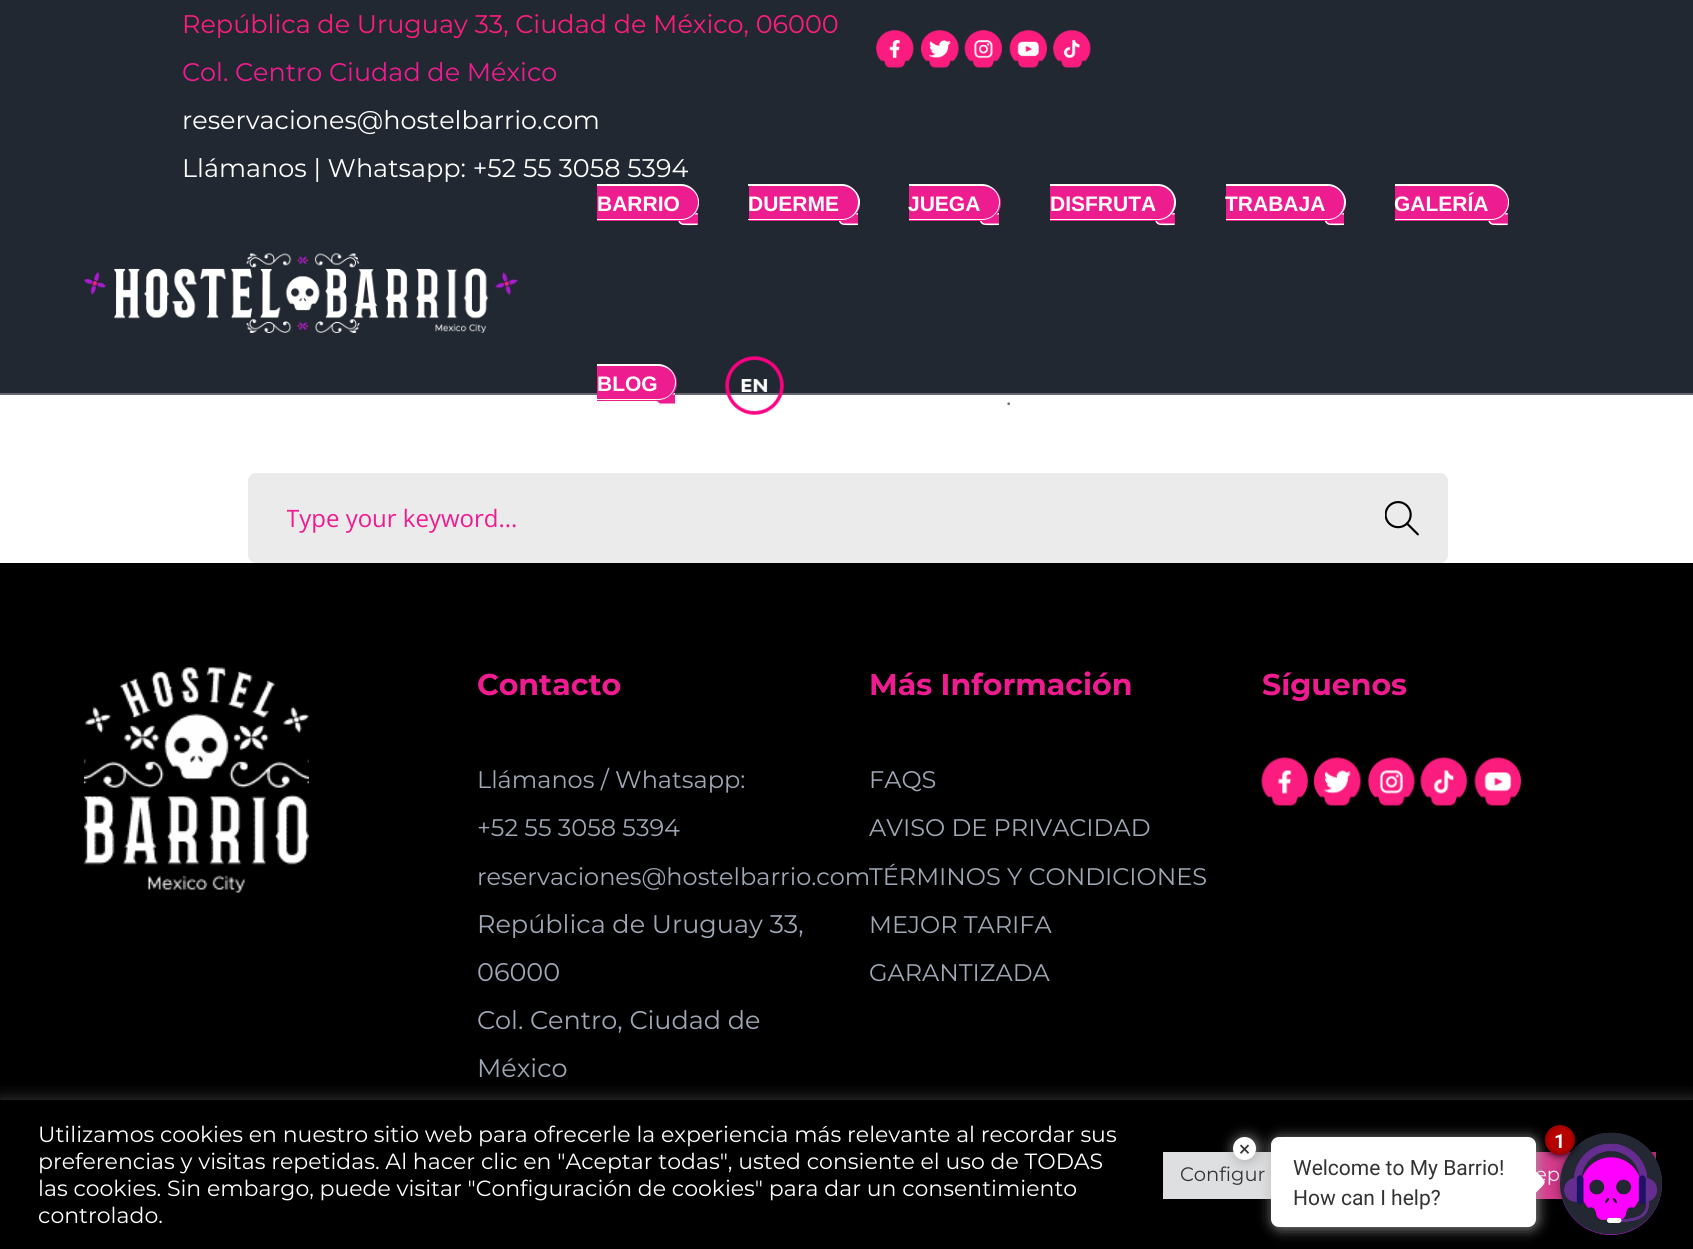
import math
import cairo

surface = cairo.ImageSurface(cairo.Format.RGB24, 1693, 1249)
ctx = cairo.Context(surface)
options = cairo.FontOptions()
options.set_hint_metrics(cairo.HintMetrics.OFF)
options.set_hint_style(cairo.HintStyle.NONE)
ctx.set_font_options(options)
ctx.set_miter_limit(4)


def ink(r, g, b):
    ctx.set_source_rgb(r / 255, g / 255, b / 255)


def write(x, y, s, family, size, color, bold=False, italic=False):
    ctx.select_font_face(family, cairo.FontSlant.ITALIC if italic else cairo.FontSlant.NORMAL, cairo.FontWeight.BOLD if bold else cairo.FontWeight.NORMAL)
    ctx.set_font_size(size)
    ink(*color)
    ctx.move_to(x, y)
    ctx.show_text(s)


def block(x, y, w, h, *color):
    ink(*color)
    ctx.rectangle(x, y, w, h)
    ctx.fill()


def round_path(x, y, w, h, r):
    ctx.new_sub_path()
    for i, (u, v) in enumerate([(x + w - r, y + h - r), (x + r, y + h - r), (x + r, y + r), (x + w - r, y + r)]):
        ctx.arc(u, v, r, i * math.pi / 2, (i + 1) * math.pi / 2)
    ctx.close_path()


def blur_box(x, y, w, h, r, blur, alpha):
    ctx.push_group_with_content(cairo.Content.ALPHA)
    ctx.set_operator(cairo.Operator.SOURCE)
    for i in range(15, -16, -2):
        e = blur * i / 6
        if min(w, h) + 2 * e > 0:
            ctx.set_source_rgba(0, 0, 0, alpha * math.erfc((i - 1) / 8.5) / 2)
            round_path(x - e, y - e, w + 2 * e, h + 2 * e, max(0, min(r + e + blur * .6, min(w, h) / 2 + e)))
            ctx.fill()
    ctx.mask(ctx.pop_group())


def paste(path, x, y, w, h):
    ctx.save()
    ctx.set_source_surface(cairo.ImageSurface.create_from_png(path), x, y)
    ctx.rectangle(x, y, w, h)
    ctx.fill()
    ctx.restore()


s1 = dict(family="Montserrat", size=25.5, color=(251, 28, 126))
s2 = dict(family="Montserrat", size=25.5, color=(238, 28, 144))
s3 = dict(family="Montserrat", size=25.5, color=(255, 255, 255))
s4 = dict(family="Liberation Sans", size=21, color=(255, 255, 255), bold=True)
s5 = dict(family="Montserrat", size=25.5, color=(106, 114, 127))
s6 = dict(family="Open Sans", size=24, color=(238, 28, 144))
s7 = dict(family="Montserrat", size=30, color=(238, 28, 144), bold=True)
s8 = dict(family="Montserrat", size=24, color=(160, 168, 181))
s9 = dict(family="Montserrat", size=25.5, color=(160, 168, 181))
s10 = dict(family="Montserrat", size=22, color=(255, 255, 255))
s11 = dict(family="Montserrat", size=19.5, color=(51, 51, 51))
s12 = dict(family="Montserrat", size=19.5, color=(255, 255, 255))
s13 = dict(family="Roboto", size=19.5, color=(255, 255, 255), bold=True)
s14 = dict(family="Roboto", size=21, color=(51, 51, 51))

ink(255, 255, 255)
ctx.paint()
block(0, 0, 1693, 393, 34, 40, 49)
block(0, 393, 1693, 2, 100, 105, 111)
write(182, 33, "República de Uruguay 33, Ciudad de México, 06000", **s1)
write(182, 81, "Col. Centro Ciudad de México", **s2)
write(182, 129, "reservaciones@hostelbarrio.com", **s3)
write(182, 177, "Llámanos | Whatsapp: +52 55 3058 5394", **s3)
paste("pic1.png", 876, 30, 38, 38)
paste("pic2.png", 921, 30, 38, 38)
paste("pic3.png", 964, 30, 38, 38)
paste("pic4.png", 1009, 30, 38, 38)
paste("pic5.png", 1053, 30, 38, 38)
paste("pic6.png", 84, 253, 434, 80)
ink(237, 29, 143)
ctx.new_path()
ctx.move_to(684, 213)
ctx.line_to(698, 213)
ctx.line_to(698, 225)
ctx.line_to(684, 225)
ctx.curve_to(680.5, 225, 678, 222.5, 678, 219)
ctx.curve_to(678, 215.5, 680.5, 213, 684, 213)
ctx.close_path()
ctx.fill()
ink(255, 255, 255)
ctx.set_fill_rule(cairo.FillRule.EVEN_ODD)
ctx.new_path()
ctx.move_to(684, 213)
ctx.line_to(697.5, 213)
ctx.line_to(697.5, 225)
ctx.curve_to(694, 225, 684.5, 225.5, 681.5, 224.5)
ctx.curve_to(676, 222, 677.5, 213, 684, 213)
ctx.close_path()
ctx.move_to(684, 214.5)
ctx.line_to(697.5, 214.5)
ctx.line_to(697.5, 223.5)
ctx.line_to(683, 223.5)
ctx.curve_to(678, 222.5, 678.5, 214.5, 684, 214.5)
ctx.close_path()
ctx.fill()
ink(237, 29, 143)
ctx.new_path()
ctx.move_to(597, 185)
ctx.line_to(681, 185)
ctx.curve_to(691, 185, 699, 193, 699, 203)
ctx.curve_to(699, 213, 691, 221, 681, 221)
ctx.line_to(597, 221)
ctx.close_path()
ctx.fill()
ink(255, 255, 255)
ctx.new_path()
ctx.move_to(597, 184)
ctx.line_to(681, 184)
ctx.curve_to(691, 184, 699, 193, 699, 202)
ctx.curve_to(699, 212, 691, 220, 681, 220)
ctx.line_to(597, 220)
ctx.close_path()
ctx.move_to(597, 186)
ctx.line_to(681, 186)
ctx.curve_to(690, 186, 698, 193, 698, 202)
ctx.curve_to(698, 212, 690, 219, 681, 219)
ctx.line_to(597, 219)
ctx.close_path()
ctx.fill()
write(597, 211, "BARRIO", **s4)
ink(237, 29, 143)
ctx.new_path()
ctx.move_to(845, 213)
ctx.line_to(858, 213)
ctx.line_to(858, 225)
ctx.line_to(845, 225)
ctx.curve_to(841.5, 225, 839, 222.5, 839, 219)
ctx.curve_to(839, 215.5, 841.5, 213, 845, 213)
ctx.close_path()
ctx.fill()
ink(255, 255, 255)
ctx.new_path()
ctx.move_to(844.5, 213)
ctx.line_to(858, 213)
ctx.line_to(858, 225)
ctx.curve_to(854.5, 225, 845, 225.5, 842, 224.5)
ctx.curve_to(836.5, 222, 838, 213, 844.5, 213)
ctx.close_path()
ctx.move_to(844.5, 214.5)
ctx.line_to(858, 214.5)
ctx.line_to(858, 223.5)
ctx.line_to(843.5, 223.5)
ctx.curve_to(838.5, 222.5, 839, 214.5, 844.5, 214.5)
ctx.close_path()
ctx.fill()
ink(237, 29, 143)
ctx.new_path()
ctx.move_to(749, 185)
ctx.line_to(842, 185)
ctx.curve_to(852, 185, 860, 193, 860, 203)
ctx.curve_to(860, 213, 852, 221, 842, 221)
ctx.line_to(749, 221)
ctx.close_path()
ctx.fill()
ink(255, 255, 255)
ctx.new_path()
ctx.move_to(748, 184)
ctx.line_to(842, 184)
ctx.curve_to(851, 184, 860, 193, 860, 202)
ctx.curve_to(860, 212, 851, 220, 842, 220)
ctx.line_to(748, 220)
ctx.close_path()
ctx.move_to(748, 186)
ctx.line_to(842, 186)
ctx.curve_to(851, 186, 858, 193, 858, 202)
ctx.curve_to(858, 212, 851, 219, 842, 219)
ctx.line_to(748, 219)
ctx.close_path()
ctx.fill()
write(748, 211, "DUERME", **s4)
ink(237, 29, 143)
ctx.new_path()
ctx.move_to(986, 213)
ctx.line_to(999, 213)
ctx.line_to(999, 225)
ctx.line_to(986, 225)
ctx.curve_to(982.5, 225, 980, 222.5, 980, 219)
ctx.curve_to(980, 215.5, 982.5, 213, 986, 213)
ctx.close_path()
ctx.fill()
ink(255, 255, 255)
ctx.new_path()
ctx.move_to(985.5, 213)
ctx.line_to(999, 213)
ctx.line_to(999, 225)
ctx.curve_to(995.5, 225, 986, 225.5, 983, 224.5)
ctx.curve_to(977.5, 222, 979, 213, 985.5, 213)
ctx.close_path()
ctx.move_to(985.5, 214.5)
ctx.line_to(999, 214.5)
ctx.line_to(999, 223.5)
ctx.line_to(984.5, 223.5)
ctx.curve_to(979.5, 222.5, 980, 214.5, 985.5, 214.5)
ctx.close_path()
ctx.fill()
ink(237, 29, 143)
ctx.new_path()
ctx.move_to(909, 185)
ctx.line_to(983, 185)
ctx.curve_to(993, 185, 1001, 193, 1001, 203)
ctx.curve_to(1001, 213, 993, 221, 983, 221)
ctx.line_to(909, 221)
ctx.close_path()
ctx.fill()
ink(255, 255, 255)
ctx.new_path()
ctx.move_to(909, 184)
ctx.line_to(982, 184)
ctx.curve_to(992, 184, 1000, 193, 1000, 202)
ctx.curve_to(1000, 212, 992, 220, 982, 220)
ctx.line_to(909, 220)
ctx.close_path()
ctx.move_to(909, 186)
ctx.line_to(982, 186)
ctx.curve_to(992, 186, 999, 193, 999, 202)
ctx.curve_to(999, 212, 992, 219, 982, 219)
ctx.line_to(909, 219)
ctx.close_path()
ctx.fill()
write(908, 211, "JUEGA", **s4)
ink(237, 29, 143)
ctx.new_path()
ctx.move_to(1161, 213)
ctx.line_to(1175, 213)
ctx.line_to(1175, 225)
ctx.line_to(1161, 225)
ctx.curve_to(1157.5, 225, 1155, 222.5, 1155, 219)
ctx.curve_to(1155, 215.5, 1157.5, 213, 1161, 213)
ctx.close_path()
ctx.fill()
ink(255, 255, 255)
ctx.new_path()
ctx.move_to(1161, 213)
ctx.line_to(1174.5, 213)
ctx.line_to(1174.5, 225)
ctx.curve_to(1171, 225, 1161.5, 225.5, 1158.5, 224.5)
ctx.curve_to(1153, 222, 1154.5, 213, 1161, 213)
ctx.close_path()
ctx.move_to(1161, 214.5)
ctx.line_to(1174.5, 214.5)
ctx.line_to(1174.5, 223.5)
ctx.line_to(1160, 223.5)
ctx.curve_to(1155, 222.5, 1155.5, 214.5, 1161, 214.5)
ctx.close_path()
ctx.fill()
ink(237, 29, 143)
ctx.new_path()
ctx.move_to(1050, 185)
ctx.line_to(1158, 185)
ctx.curve_to(1168, 185, 1176, 193, 1176, 203)
ctx.curve_to(1176, 213, 1168, 221, 1158, 221)
ctx.line_to(1050, 221)
ctx.close_path()
ctx.fill()
ink(255, 255, 255)
ctx.new_path()
ctx.move_to(1050, 184)
ctx.line_to(1158, 184)
ctx.curve_to(1168, 184, 1176, 193, 1176, 202)
ctx.curve_to(1176, 212, 1168, 220, 1158, 220)
ctx.line_to(1050, 220)
ctx.close_path()
ctx.move_to(1050, 186)
ctx.line_to(1158, 186)
ctx.curve_to(1167, 186, 1174, 193, 1174, 202)
ctx.curve_to(1174, 212, 1167, 219, 1158, 219)
ctx.line_to(1050, 219)
ctx.close_path()
ctx.fill()
write(1050, 211, "DISFRUTA", **s4)
ink(237, 29, 143)
ctx.new_path()
ctx.move_to(1331, 213)
ctx.line_to(1344, 213)
ctx.line_to(1344, 225)
ctx.line_to(1331, 225)
ctx.curve_to(1327.5, 225, 1325, 222.5, 1325, 219)
ctx.curve_to(1325, 215.5, 1327.5, 213, 1331, 213)
ctx.close_path()
ctx.fill()
ink(255, 255, 255)
ctx.new_path()
ctx.move_to(1330.5, 213)
ctx.line_to(1344, 213)
ctx.line_to(1344, 225)
ctx.curve_to(1340.5, 225, 1331, 225.5, 1328, 224.5)
ctx.curve_to(1322.5, 222, 1324, 213, 1330.5, 213)
ctx.close_path()
ctx.move_to(1330.5, 214.5)
ctx.line_to(1344, 214.5)
ctx.line_to(1344, 223.5)
ctx.line_to(1329.5, 223.5)
ctx.curve_to(1324.5, 222.5, 1325, 214.5, 1330.5, 214.5)
ctx.close_path()
ctx.fill()
ink(237, 29, 143)
ctx.new_path()
ctx.move_to(1226, 185)
ctx.line_to(1328, 185)
ctx.curve_to(1338, 185, 1346, 193, 1346, 203)
ctx.curve_to(1346, 213, 1338, 221, 1328, 221)
ctx.line_to(1226, 221)
ctx.close_path()
ctx.fill()
ink(255, 255, 255)
ctx.new_path()
ctx.move_to(1226, 184)
ctx.line_to(1328, 184)
ctx.curve_to(1337, 184, 1346, 193, 1346, 202)
ctx.curve_to(1346, 212, 1337, 220, 1328, 220)
ctx.line_to(1226, 220)
ctx.close_path()
ctx.move_to(1226, 186)
ctx.line_to(1328, 186)
ctx.curve_to(1337, 186, 1344, 193, 1344, 202)
ctx.curve_to(1344, 212, 1337, 219, 1328, 219)
ctx.line_to(1226, 219)
ctx.close_path()
ctx.fill()
write(1225, 211, "TRABAJA", **s4)
ink(237, 29, 143)
ctx.new_path()
ctx.move_to(1494, 213)
ctx.line_to(1508, 213)
ctx.line_to(1508, 225)
ctx.line_to(1494, 225)
ctx.curve_to(1490.5, 225, 1488, 222.5, 1488, 219)
ctx.curve_to(1488, 215.5, 1490.5, 213, 1494, 213)
ctx.close_path()
ctx.fill()
ink(255, 255, 255)
ctx.new_path()
ctx.move_to(1494, 213)
ctx.line_to(1507.5, 213)
ctx.line_to(1507.5, 225)
ctx.curve_to(1504, 225, 1494.5, 225.5, 1491.5, 224.5)
ctx.curve_to(1486, 222, 1487.5, 213, 1494, 213)
ctx.close_path()
ctx.move_to(1494, 214.5)
ctx.line_to(1507.5, 214.5)
ctx.line_to(1507.5, 223.5)
ctx.line_to(1493, 223.5)
ctx.curve_to(1488, 222.5, 1488.5, 214.5, 1494, 214.5)
ctx.close_path()
ctx.fill()
ink(237, 29, 143)
ctx.new_path()
ctx.move_to(1395, 185)
ctx.line_to(1491, 185)
ctx.curve_to(1501, 185, 1509, 193, 1509, 203)
ctx.curve_to(1509, 213, 1501, 221, 1491, 221)
ctx.line_to(1395, 221)
ctx.close_path()
ctx.fill()
ink(255, 255, 255)
ctx.new_path()
ctx.move_to(1395, 184)
ctx.line_to(1491, 184)
ctx.curve_to(1501, 184, 1509, 193, 1509, 202)
ctx.curve_to(1509, 212, 1501, 220, 1491, 220)
ctx.line_to(1395, 220)
ctx.close_path()
ctx.move_to(1395, 186)
ctx.line_to(1491, 186)
ctx.curve_to(1500, 186, 1508, 193, 1508, 202)
ctx.curve_to(1508, 212, 1500, 219, 1491, 219)
ctx.line_to(1395, 219)
ctx.close_path()
ctx.fill()
write(1394, 211, "GALERÍA", **s4)
ink(237, 29, 143)
ctx.new_path()
ctx.move_to(662, 393)
ctx.line_to(675, 393)
ctx.line_to(675, 405)
ctx.line_to(662, 405)
ctx.curve_to(658.5, 405, 656, 402.5, 656, 399)
ctx.curve_to(656, 395.5, 658.5, 393, 662, 393)
ctx.close_path()
ctx.fill()
ink(255, 255, 255)
ctx.new_path()
ctx.move_to(661.5, 393)
ctx.line_to(675, 393)
ctx.line_to(675, 405)
ctx.curve_to(671.5, 405, 662, 405.5, 659, 404.5)
ctx.curve_to(653.5, 402, 655, 393, 661.5, 393)
ctx.close_path()
ctx.move_to(661.5, 394.5)
ctx.line_to(675, 394.5)
ctx.line_to(675, 403.5)
ctx.line_to(660.5, 403.5)
ctx.curve_to(655.5, 402.5, 656, 394.5, 661.5, 394.5)
ctx.close_path()
ctx.fill()
ink(237, 29, 143)
ctx.new_path()
ctx.move_to(597, 365)
ctx.line_to(659, 365)
ctx.curve_to(669, 365, 677, 373, 677, 383)
ctx.curve_to(677, 393, 669, 401, 659, 401)
ctx.line_to(597, 401)
ctx.close_path()
ctx.fill()
ink(255, 255, 255)
ctx.new_path()
ctx.move_to(597, 364)
ctx.line_to(658, 364)
ctx.curve_to(668, 364, 676, 373, 676, 382)
ctx.curve_to(676, 392, 668, 400, 658, 400)
ctx.line_to(597, 400)
ctx.close_path()
ctx.move_to(597, 366)
ctx.line_to(658, 366)
ctx.curve_to(668, 366, 675, 373, 675, 382)
ctx.curve_to(675, 392, 668, 399, 658, 399)
ctx.line_to(597, 399)
ctx.close_path()
ctx.fill()
write(597, 391, "BLOG", **s4)
paste("pic7.png", 725, 356, 59, 59)
write(1006, 405, ".", **s5)
ink(235, 235, 235)
round_path(249, 474, 1198, 88, 7)
ctx.fill_preserve()
ctx.stroke()
ctx.save()
ctx.set_fill_rule(cairo.FillRule.WINDING)
ctx.rectangle(287, 501, 1122, 33)
ctx.clip()
write(286, 527, "Type your keyword...", **s6)
ctx.restore()
paste("pic8.png", 1385, 501, 34, 35)
block(0, 563, 1693, 537, 0, 0, 0)
paste("pic9.png", 84, 667, 225, 226)
write(477, 695, "Contacto", **s7)
write(477, 788, "Llámanos / Whatsapp:", **s8)
write(477, 836, "+52 55 3058 5394", **s8)
write(477, 885, "reservaciones@hostelbarrio.com", **s8)
write(477, 933, "República de Uruguay 33,", **s9)
write(477, 981, "06000", **s9)
write(477, 1029, "Col. Centro, Ciudad de", **s9)
write(477, 1077, "México", **s9)
write(869, 695, "Más Información", **s7)
write(869, 788, "FAQS", **s8)
write(869, 836, "AVISO DE PRIVACIDAD", **s8)
write(869, 885, "TÉRMINOS Y CONDICIONES", **s8)
write(869, 933, "MEJOR TARIFA", **s8)
write(869, 981, "GARANTIZADA", **s8)
write(1262, 695, "Síguenos", **s7)
paste("pic10.png", 1261, 757, 47, 49)
paste("pic11.png", 1314, 757, 47, 49)
paste("pic12.png", 1368, 757, 47, 49)
paste("pic13.png", 1420, 757, 47, 49)
paste("pic14.png", 1474, 757, 47, 49)
ink(172, 171, 171)
blur_box(0, 1098, 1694, 150, 0, 7.5, 0.3)
block(0, 1100, 1693, 149, 0, 0, 0)
write(38, 1142, "Utilizamos cookies en nuestro sitio web para ofrecerle la experiencia más relevante al recordar sus", **s10)
write(38, 1169, "preferencias y visitas repetidas. Al hacer clic en \"Aceptar todas\", usted consiente el uso de TODAS", **s10)
write(38, 1196, "las cookies. Sin embargo, puede visitar \"Configuración de cookies\" para dar un consentimiento", **s10)
write(38, 1223, "controlado.", **s10)
block(1163, 1152, 108, 47, 222, 223, 224)
write(1180, 1181, "Configur", **s11)
block(1536, 1152, 120, 47, 214, 57, 140)
write(1535, 1181, "ep", **s12)
ink(170, 170, 170)
blur_box(1274, 1140, 262, 87, 6, 7.5, 1)
ink(255, 255, 255)
round_path(1271, 1137, 265, 90, 8)
ctx.fill()
ctx.set_fill_rule(cairo.FillRule.WINDING)
ctx.new_path()
ctx.move_to(1536, 1171.5)
ctx.curve_to(1547.5, 1183, 1547.5, 1181, 1536, 1192.5)
ctx.line_to(1525.5, 1182)
ctx.close_path()
ctx.fill()
ink(0, 0, 0)
blur_box(1566, 1139, 93, 93, 46.5, 7.5, 1)
ink(169, 28, 209)
ctx.arc(1611, 1184, 51, 0, 2 * math.pi)
ctx.fill()
paste("pic15.png", 1560, 1132, 102, 103)
ink(0, 0, 0)
blur_box(1545, 1125, 30, 30, 15, 4, 1)
ink(182, 0, 0)
ctx.arc(1560, 1140, 13.5, 0, 2 * math.pi)
ctx.fill_preserve()
ink(163, 0, 0)
ctx.set_line_width(3)
ctx.stroke()
write(1554, 1148, "1", **s13)
ink(170, 170, 170)
blur_box(1236, 1140, 20, 20, 10, 7.5, 1)
ink(255, 255, 255)
ctx.arc(1244.5, 1148.5, 11.5, 0, 2 * math.pi)
ctx.fill()
write(1239, 1156, "×", **s14)
write(1293, 1175, "Welcome to My Barrio!", **s14)
write(1293, 1205, "How can I help?", **s14)
surface.write_to_png("screenshot.png")
